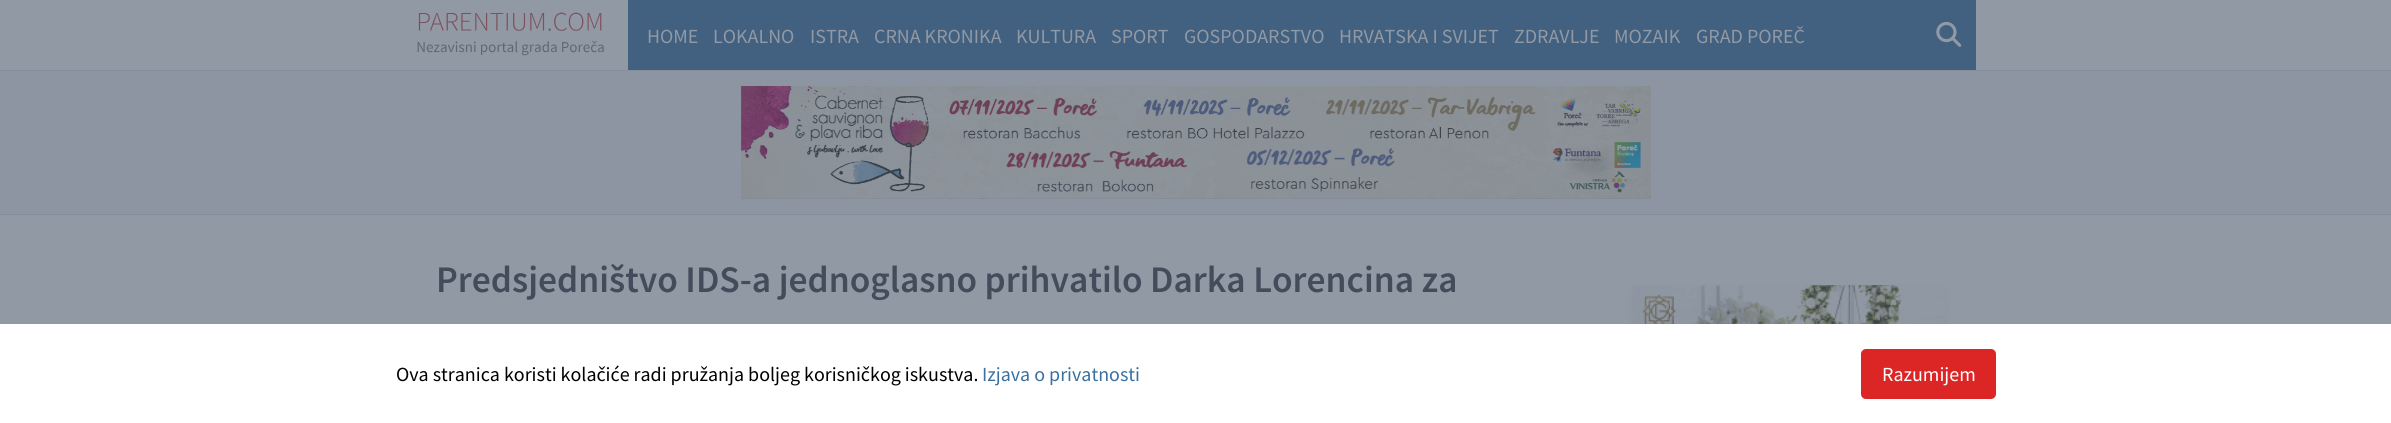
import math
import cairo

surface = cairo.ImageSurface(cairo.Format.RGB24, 2391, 423)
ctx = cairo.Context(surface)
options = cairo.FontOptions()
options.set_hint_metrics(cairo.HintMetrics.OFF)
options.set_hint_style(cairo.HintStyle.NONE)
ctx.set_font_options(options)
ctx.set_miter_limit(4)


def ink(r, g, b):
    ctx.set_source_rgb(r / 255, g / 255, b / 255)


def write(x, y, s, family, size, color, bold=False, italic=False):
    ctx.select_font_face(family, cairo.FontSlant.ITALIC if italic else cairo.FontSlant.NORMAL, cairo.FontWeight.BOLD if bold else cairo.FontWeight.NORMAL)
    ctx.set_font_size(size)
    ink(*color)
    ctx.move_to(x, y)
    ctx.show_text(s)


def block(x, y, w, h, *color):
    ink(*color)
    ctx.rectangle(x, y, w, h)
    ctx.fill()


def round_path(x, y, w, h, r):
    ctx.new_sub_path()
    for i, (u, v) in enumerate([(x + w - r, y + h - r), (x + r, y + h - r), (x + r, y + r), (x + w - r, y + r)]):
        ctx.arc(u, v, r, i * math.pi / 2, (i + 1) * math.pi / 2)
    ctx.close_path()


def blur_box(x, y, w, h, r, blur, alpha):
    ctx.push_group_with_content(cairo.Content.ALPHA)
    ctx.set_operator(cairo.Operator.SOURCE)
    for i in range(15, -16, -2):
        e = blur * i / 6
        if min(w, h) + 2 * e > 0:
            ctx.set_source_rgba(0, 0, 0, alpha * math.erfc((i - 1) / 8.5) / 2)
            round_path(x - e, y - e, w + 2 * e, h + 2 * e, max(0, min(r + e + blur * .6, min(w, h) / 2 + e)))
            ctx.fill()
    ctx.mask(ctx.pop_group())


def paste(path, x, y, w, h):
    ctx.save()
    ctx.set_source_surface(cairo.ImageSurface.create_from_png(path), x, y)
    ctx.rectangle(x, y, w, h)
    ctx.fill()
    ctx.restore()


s1 = dict(family="Source Sans Pro", size=20, color=(145, 153, 165))
s2 = dict(family="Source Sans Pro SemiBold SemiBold", size=37.5, color=(68, 76, 91))
s3 = dict(family="Source Sans Pro", size=20, color=(0, 0, 0))
s4 = dict(family="Source Sans Pro", size=20, color=(58, 112, 160))
s5 = dict(family="Source Sans Pro", size=20, color=(255, 255, 255))

ink(145, 153, 165)
ctx.paint()
paste("pic1.png", 417, 12, 187, 44)
block(628, 0, 1348, 70, 66, 96, 127)
write(647, 43, "HOME", **s1)
write(713, 43, "LOKALNO", **s1)
write(810, 43, "ISTRA", **s1)
write(874, 43, "CRNA KRONIKA", **s1)
write(1016, 43, "KULTURA", **s1)
write(1111, 43, "SPORT", **s1)
write(1184, 43, "GOSPODARSTVO", **s1)
write(1339, 43, "HRVATSKA I SVIJET", **s1)
write(1514, 43, "ZDRAVLJE", **s1)
write(1614, 43, "MOZAIK", **s1)
write(1696, 43, "GRAD POREČ", **s1)
paste("pic2.png", 1936, 21, 26, 26)
block(0, 71, 2391, 143, 140, 149, 161)
block(0, 70, 2391, 1, 134, 142, 155)
block(0, 214, 2391, 1, 134, 142, 155)
paste("pic3.png", 741, 86, 910, 113)
write(436, 292, "Predsjedništvo IDS-a jednoglasno prihvatilo Darka Lorencina za", **s2)
ink(43, 51, 63)
blur_box(1634, 291, 310, 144, 0, 4, 0.1)
paste("pic4.png", 1632, 285, 313, 39)
block(0, 324, 2391, 99, 255, 255, 255)
write(396, 381, "Ova stranica koristi kolačiće radi pružanja boljeg korisničkog iskustva.", **s3)
write(982, 381, "Izjava o privatnosti", **s4)
ink(220, 38, 38)
round_path(1861, 349, 135, 50, 5)
ctx.fill()
write(1882, 381, "Razumijem", **s5)
surface.write_to_png("screenshot.png")
